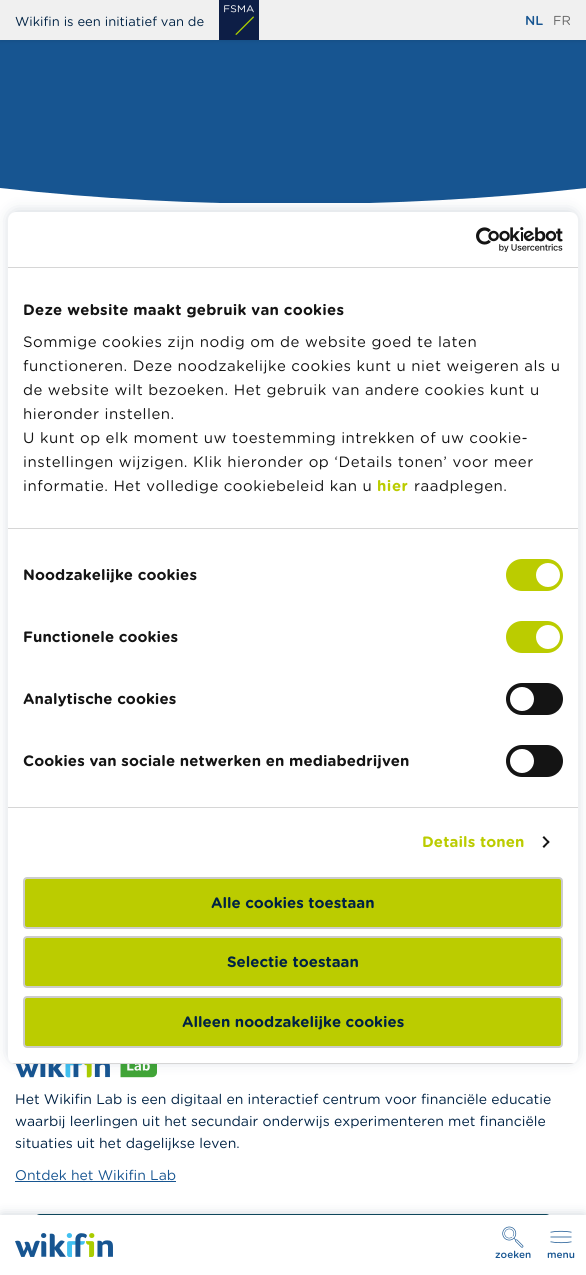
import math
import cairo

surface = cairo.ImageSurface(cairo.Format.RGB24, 586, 1275)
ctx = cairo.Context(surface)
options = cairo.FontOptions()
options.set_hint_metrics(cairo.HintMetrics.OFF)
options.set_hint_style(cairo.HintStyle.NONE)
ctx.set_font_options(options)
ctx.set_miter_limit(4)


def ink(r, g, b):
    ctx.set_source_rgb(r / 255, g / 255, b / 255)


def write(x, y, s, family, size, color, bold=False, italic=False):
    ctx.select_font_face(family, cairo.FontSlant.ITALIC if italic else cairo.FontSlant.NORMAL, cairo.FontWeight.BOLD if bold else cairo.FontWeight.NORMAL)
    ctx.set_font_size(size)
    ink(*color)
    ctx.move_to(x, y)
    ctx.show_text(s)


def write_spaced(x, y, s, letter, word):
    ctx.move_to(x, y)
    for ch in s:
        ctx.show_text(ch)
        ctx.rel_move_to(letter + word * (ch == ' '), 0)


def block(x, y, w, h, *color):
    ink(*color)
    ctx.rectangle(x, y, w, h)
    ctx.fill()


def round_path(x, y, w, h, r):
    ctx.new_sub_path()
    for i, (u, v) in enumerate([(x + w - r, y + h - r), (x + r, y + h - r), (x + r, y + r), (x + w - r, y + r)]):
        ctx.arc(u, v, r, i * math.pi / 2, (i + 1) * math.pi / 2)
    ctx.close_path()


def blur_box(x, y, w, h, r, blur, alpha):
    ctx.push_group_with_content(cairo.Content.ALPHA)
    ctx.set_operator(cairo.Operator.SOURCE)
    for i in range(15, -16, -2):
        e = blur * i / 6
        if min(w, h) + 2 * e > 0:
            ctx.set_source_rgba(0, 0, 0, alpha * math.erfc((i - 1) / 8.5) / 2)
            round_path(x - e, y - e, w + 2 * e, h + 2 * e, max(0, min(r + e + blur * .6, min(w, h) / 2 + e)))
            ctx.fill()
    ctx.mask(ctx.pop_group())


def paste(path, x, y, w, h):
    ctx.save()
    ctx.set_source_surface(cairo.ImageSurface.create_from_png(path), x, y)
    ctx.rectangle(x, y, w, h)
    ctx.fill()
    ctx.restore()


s1 = dict(family="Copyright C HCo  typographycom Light", size=13, color=(0, 34, 68))
s2 = dict(family="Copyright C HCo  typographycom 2 Light", size=13, color=(23, 85, 145))
s3 = dict(family="Copyright C HCo  typographycom Light", size=13, color=(102, 102, 102))
s4 = dict(family="Copyright C HCo  typographycom Light", size=14, color=(0, 34, 68))
s5 = dict(family="Copyright C HCo  typographycom Light", size=14, color=(23, 85, 145))
s6 = dict(family="Copyright C HCo  typographycom 2 Light", size=10, color=(23, 85, 145))
s7 = dict(family="Copyright C HCo  typographycom", size=15, color=(0, 34, 68))

ink(255, 255, 255)
ctx.paint()
block(0, 40, 586, 163, 23, 85, 145)
ink(0, 0, 0)
blur_box(0, 1, 586, 40, 0, 2, 0.1)
block(0, 0, 586, 40, 240, 240, 240)
write(15, 26, "Wikifin is een initiatief van de", **s1)
paste("pic1.png", 219, 0, 40, 40)
write(525, 25, "NL", **s2)
write(553, 25, "FR", **s3)
paste("pic2.png", 15, 1063, 142, 15)
write(15, 1104, "Het Wikifin Lab is een digitaal en interactief centrum voor financiële educatie", **s4)
write(15, 1126, "waarbij leerlingen uit het secundair onderwijs experimenteren met financiële", **s4)
write(15, 1148, "situaties uit het dagelijkse leven.", **s4)
write(15, 1180, "Ontdek het Wikifin Lab", **s5)
block(15, 1181, 161, 1, 23, 85, 145)
ink(17, 75, 95)
round_path(35, 1214, 516, 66, 5)
ctx.fill()
ctx.save()
ctx.rectangle(0, 188, 586, 15)
ctx.clip()
ink(255, 255, 255)
ctx.new_path()
ctx.move_to(586, 188)
ctx.line_to(586, 204)
ctx.line_to(294, 204)
ctx.curve_to(392, 204, 489, 199, 586, 188)
ctx.close_path()
ctx.move_to(0, 204)
ctx.line_to(294, 204)
ctx.curve_to(196, 204, 98, 199, 0, 188)
ctx.close_path()
ctx.fill()
ctx.restore()
ink(0, 34, 68)
blur_box(2, 1216, 582, 56, 0, 6, 0.25)
block(0, 1215, 586, 60, 255, 255, 255)
paste("pic3.png", 15, 1233, 98, 24)
paste("pic4.png", 502, 1226, 22, 22)
write(495, 1258, "zoeken", **s6)
paste("pic5.png", 550, 1230, 22, 14)
write(547, 1258, "menu", **s6)
ink(0, 34, 68)
blur_box(12, 214, 562, 844, 4, 8, 0.25)
ink(255, 255, 255)
round_path(8, 212, 570, 852, 8)
ctx.fill()
block(8, 267, 570, 1, 214, 214, 214)
paste("pic6.png", 476, 227, 87, 25)
block(8, 528, 570, 1, 214, 214, 214)
ctx.select_font_face("Copyright C HCo  typographycom")
ctx.set_font_size(15)
ink(20, 20, 20)
write_spaced(23, 315, "Deze website maakt gebruik van cookies", 0.25, 0)
ctx.select_font_face("Copyright C HCo  typographycom Light")
write_spaced(23, 347, "Sommige cookies zijn nodig om de website goed te laten", 0.5, 0)
write_spaced(23, 371, "functioneren. Deze noodzakelijke cookies kunt u niet weigeren als u", 0.5, 0)
write_spaced(23, 395, "de website wilt bezoeken. Het gebruik van andere cookies kunt u", 0.5, 0)
write_spaced(23, 419, "hieronder instellen.", 0.5, 0)
write_spaced(23, 443, "U kunt op elk moment uw toestemming intrekken of uw cookie-", 0.5, 0)
write_spaced(23, 467, "instellingen wijzigen. Klik hieronder op ‘Details tonen’ voor meer", 0.5, 0)
write_spaced(23, 491, "informatie. Het volledige cookiebeleid kan u", 0.5, 0)
ctx.select_font_face("Copyright C HCo  typographycom")
ink(187, 204, 0)
write_spaced(377, 491, "hier", 0.5, 0)
ctx.select_font_face("Copyright C HCo  typographycom Light")
ink(20, 20, 20)
write_spaced(414, 491, "raadplegen.", 0.5, 0)
block(8, 807, 570, 1, 214, 214, 214)
ctx.select_font_face("Copyright C HCo  typographycom")
ink(20, 20, 20)
write_spaced(23, 580, "Noodzakelijke cookies", 0.1, 0)
ink(187, 204, 0)
round_path(506, 559, 57, 32, 16)
ctx.fill()
ink(255, 255, 255)
ctx.arc(548, 575, 12, 0, 2 * math.pi)
ctx.fill()
ink(20, 20, 20)
write_spaced(23, 642, "Functionele cookies", 0.1, 0)
ink(187, 204, 0)
round_path(506, 621, 57, 32, 16)
ctx.fill()
ink(255, 255, 255)
ctx.arc(548, 637, 12, 0, 2 * math.pi)
ctx.fill()
ink(20, 20, 20)
write_spaced(23, 704, "Analytische cookies", 0.1, 0)
round_path(506, 683, 57, 32, 16)
ctx.fill()
ink(255, 255, 255)
ctx.arc(522, 699, 12, 0, 2 * math.pi)
ctx.fill()
ink(20, 20, 20)
write_spaced(23, 766, "Cookies van sociale netwerken en mediabedrijven", 0.1, 0)
round_path(506, 745, 57, 32, 16)
ctx.fill()
ink(255, 255, 255)
ctx.arc(522, 761, 12, 0, 2 * math.pi)
ctx.fill()
ink(187, 204, 0)
write_spaced(422, 847, "Details tonen", 0.1, 0)
ink(20, 20, 20)
ctx.new_path()
ctx.move_to(544, 836)
ctx.line_to(549.5, 842)
ctx.line_to(548.5, 843.5)
ctx.line_to(542.5, 837.5)
ctx.close_path()
ctx.fill()
ctx.new_path()
ctx.move_to(548.5, 840.5)
ctx.line_to(549.5, 842)
ctx.line_to(544, 848)
ctx.line_to(542.5, 846.5)
ctx.close_path()
ctx.fill()
ctx.save()
round_path(8, 212, 570, 852, 8)
ctx.clip()
block(8, 1063, 570, 1, 214, 214, 214)
ctx.restore()
ink(187, 204, 0)
round_path(24, 878, 538, 50, 3)
ctx.fill_preserve()
ink(204, 204, 204)
ctx.stroke()
write(211, 908, "Alle cookies toestaan", **s7)
ink(187, 204, 0)
round_path(24, 937, 538, 50, 3)
ctx.fill_preserve()
ink(204, 204, 204)
ctx.stroke()
write(227, 967, "Selectie toestaan", **s7)
ink(187, 204, 0)
round_path(24, 997, 538, 50, 3)
ctx.fill_preserve()
ink(204, 204, 204)
ctx.stroke()
write(182, 1027, "Alleen noodzakelijke cookies", **s7)
surface.write_to_png("screenshot.png")
